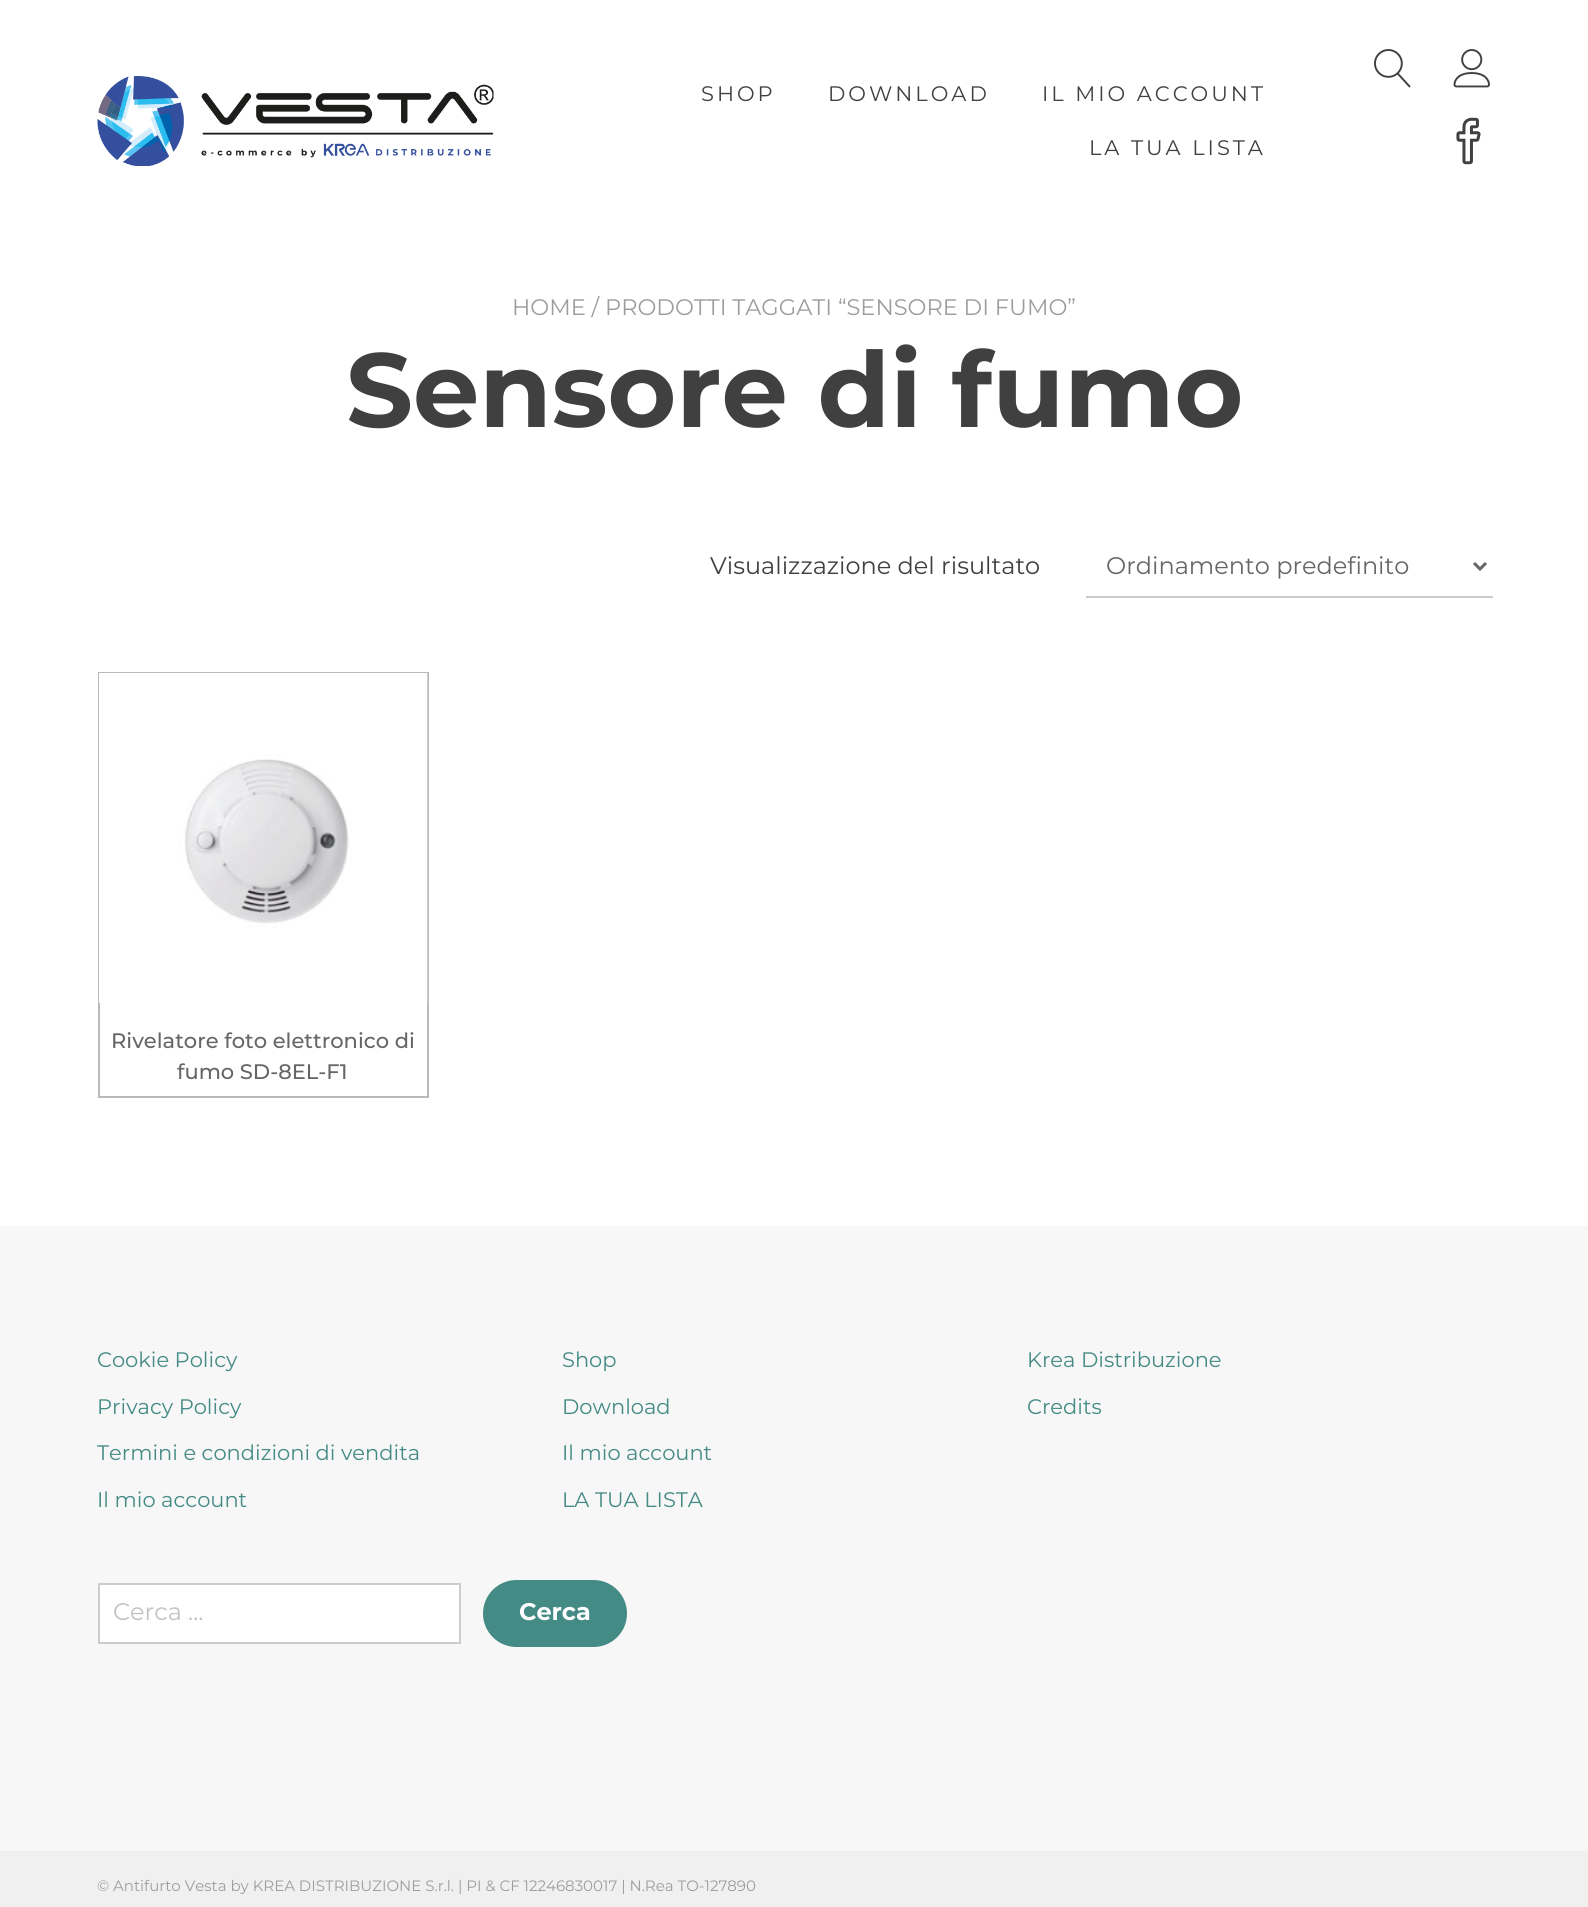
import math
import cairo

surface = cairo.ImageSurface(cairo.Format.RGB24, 1588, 1907)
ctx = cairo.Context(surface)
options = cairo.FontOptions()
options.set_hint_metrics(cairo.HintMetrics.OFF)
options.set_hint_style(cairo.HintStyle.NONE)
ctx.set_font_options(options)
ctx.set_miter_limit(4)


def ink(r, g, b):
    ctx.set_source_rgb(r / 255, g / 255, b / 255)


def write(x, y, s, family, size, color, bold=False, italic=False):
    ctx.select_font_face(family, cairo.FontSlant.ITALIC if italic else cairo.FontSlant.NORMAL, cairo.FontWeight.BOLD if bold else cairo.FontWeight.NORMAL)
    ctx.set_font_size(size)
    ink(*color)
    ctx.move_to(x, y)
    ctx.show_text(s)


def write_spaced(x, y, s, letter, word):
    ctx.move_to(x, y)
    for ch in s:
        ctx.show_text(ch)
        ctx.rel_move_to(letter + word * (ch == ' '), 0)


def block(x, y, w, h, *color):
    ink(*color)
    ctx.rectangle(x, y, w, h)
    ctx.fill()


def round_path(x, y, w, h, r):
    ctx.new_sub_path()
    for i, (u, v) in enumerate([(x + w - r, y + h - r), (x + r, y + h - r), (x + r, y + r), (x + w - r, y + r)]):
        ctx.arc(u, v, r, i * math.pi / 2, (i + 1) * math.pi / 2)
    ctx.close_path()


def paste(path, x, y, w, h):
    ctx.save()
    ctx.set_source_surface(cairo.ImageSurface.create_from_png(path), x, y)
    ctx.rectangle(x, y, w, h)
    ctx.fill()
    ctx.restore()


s1 = dict(family="Montserrat", size=22.5, color=(157, 157, 157))
s2 = dict(family="Montserrat", size=105, color=(64, 64, 64), bold=True)
s3 = dict(family="Montserrat", size=24, color=(64, 64, 64))
s4 = dict(family="Montserrat", size=24, color=(102, 102, 102))
s5 = dict(family="Montserrat Medium", size=21, color=(102, 102, 102))
s6 = dict(family="Montserrat", size=21, color=(68, 138, 133))
s7 = dict(family="Montserrat", size=24, color=(194, 194, 194))
s8 = dict(family="Montserrat", size=24, color=(255, 255, 255), bold=True)
s9 = dict(family="Montserrat", size=15, color=(157, 157, 157))

ink(255, 255, 255)
ctx.paint()
paste("pic1.png", 97, 76, 397, 90)
ctx.select_font_face("Montserrat")
ctx.set_font_size(21)
ink(64, 64, 64)
write_spaced(701, 101, "SHOP", 3, 0)
write_spaced(828, 101, "DOWNLOAD", 3, 0)
write_spaced(1042, 101, "IL MIO ACCOUNT", 3, 0)
write_spaced(1089, 155, "LA TUA LISTA", 3, 0)
paste("pic2.png", 1374, 49, 37, 39)
paste("pic3.png", 1453, 49, 37, 39)
paste("pic4.png", 1456, 117, 25, 48)
write(512, 315, "HOME / PRODOTTI TAGGATI “SENSORE DI FUMO”", **s1)
write(346, 427, "Sensore di fumo", **s2)
write(710, 574, "Visualizzazione del risultato", **s3)
block(1086, 596, 407, 2, 204, 204, 204)
ctx.new_path()
ctx.move_to(1474, 563)
ctx.line_to(1480, 569)
ctx.line_to(1486, 563)
ink(102, 102, 102)
ctx.set_line_width(3)
ctx.stroke()
write(1106, 574, "Ordinamento predefinito", **s4)
ctx.rectangle(99, 673, 329, 424)
ink(186, 186, 186)
ctx.set_line_width(2)
ctx.stroke()
paste("pic5.png", 99, 673, 329, 330)
write(111, 1048, "Rivelatore foto elettronico di", **s5)
write(177, 1079, "fumo SD-8EL-F1", **s5)
block(0, 1226, 1588, 625, 247, 247, 247)
write(97, 1367, "Cookie Policy", **s6)
write(97, 1414, "Privacy Policy", **s6)
write(97, 1460, "Termini e condizioni di vendita", **s6)
write(97, 1507, "Il mio account", **s6)
write(562, 1367, "Shop", **s6)
write(562, 1414, "Download", **s6)
write(562, 1460, "Il mio account", **s6)
write(562, 1507, "LA TUA LISTA", **s6)
write(1027, 1367, "Krea Distribuzione", **s6)
write(1027, 1414, "Credits", **s6)
ink(255, 255, 255)
ctx.rectangle(99, 1584, 361, 59)
ctx.fill_preserve()
ink(204, 204, 204)
ctx.stroke()
write(113, 1620, "Cerca …", **s7)
ink(68, 138, 133)
round_path(484, 1581, 142, 65, 32.5)
ctx.fill_preserve()
ctx.stroke()
write(519, 1620, "Cerca", **s8)
block(0, 1851, 1588, 56, 240, 240, 240)
write(97, 1891, "© Antifurto Vesta by KREA DISTRIBUZIONE S.r.l. | PI & CF 12246830017 | N.Rea TO-127890", **s9)
surface.write_to_png("screenshot.png")
